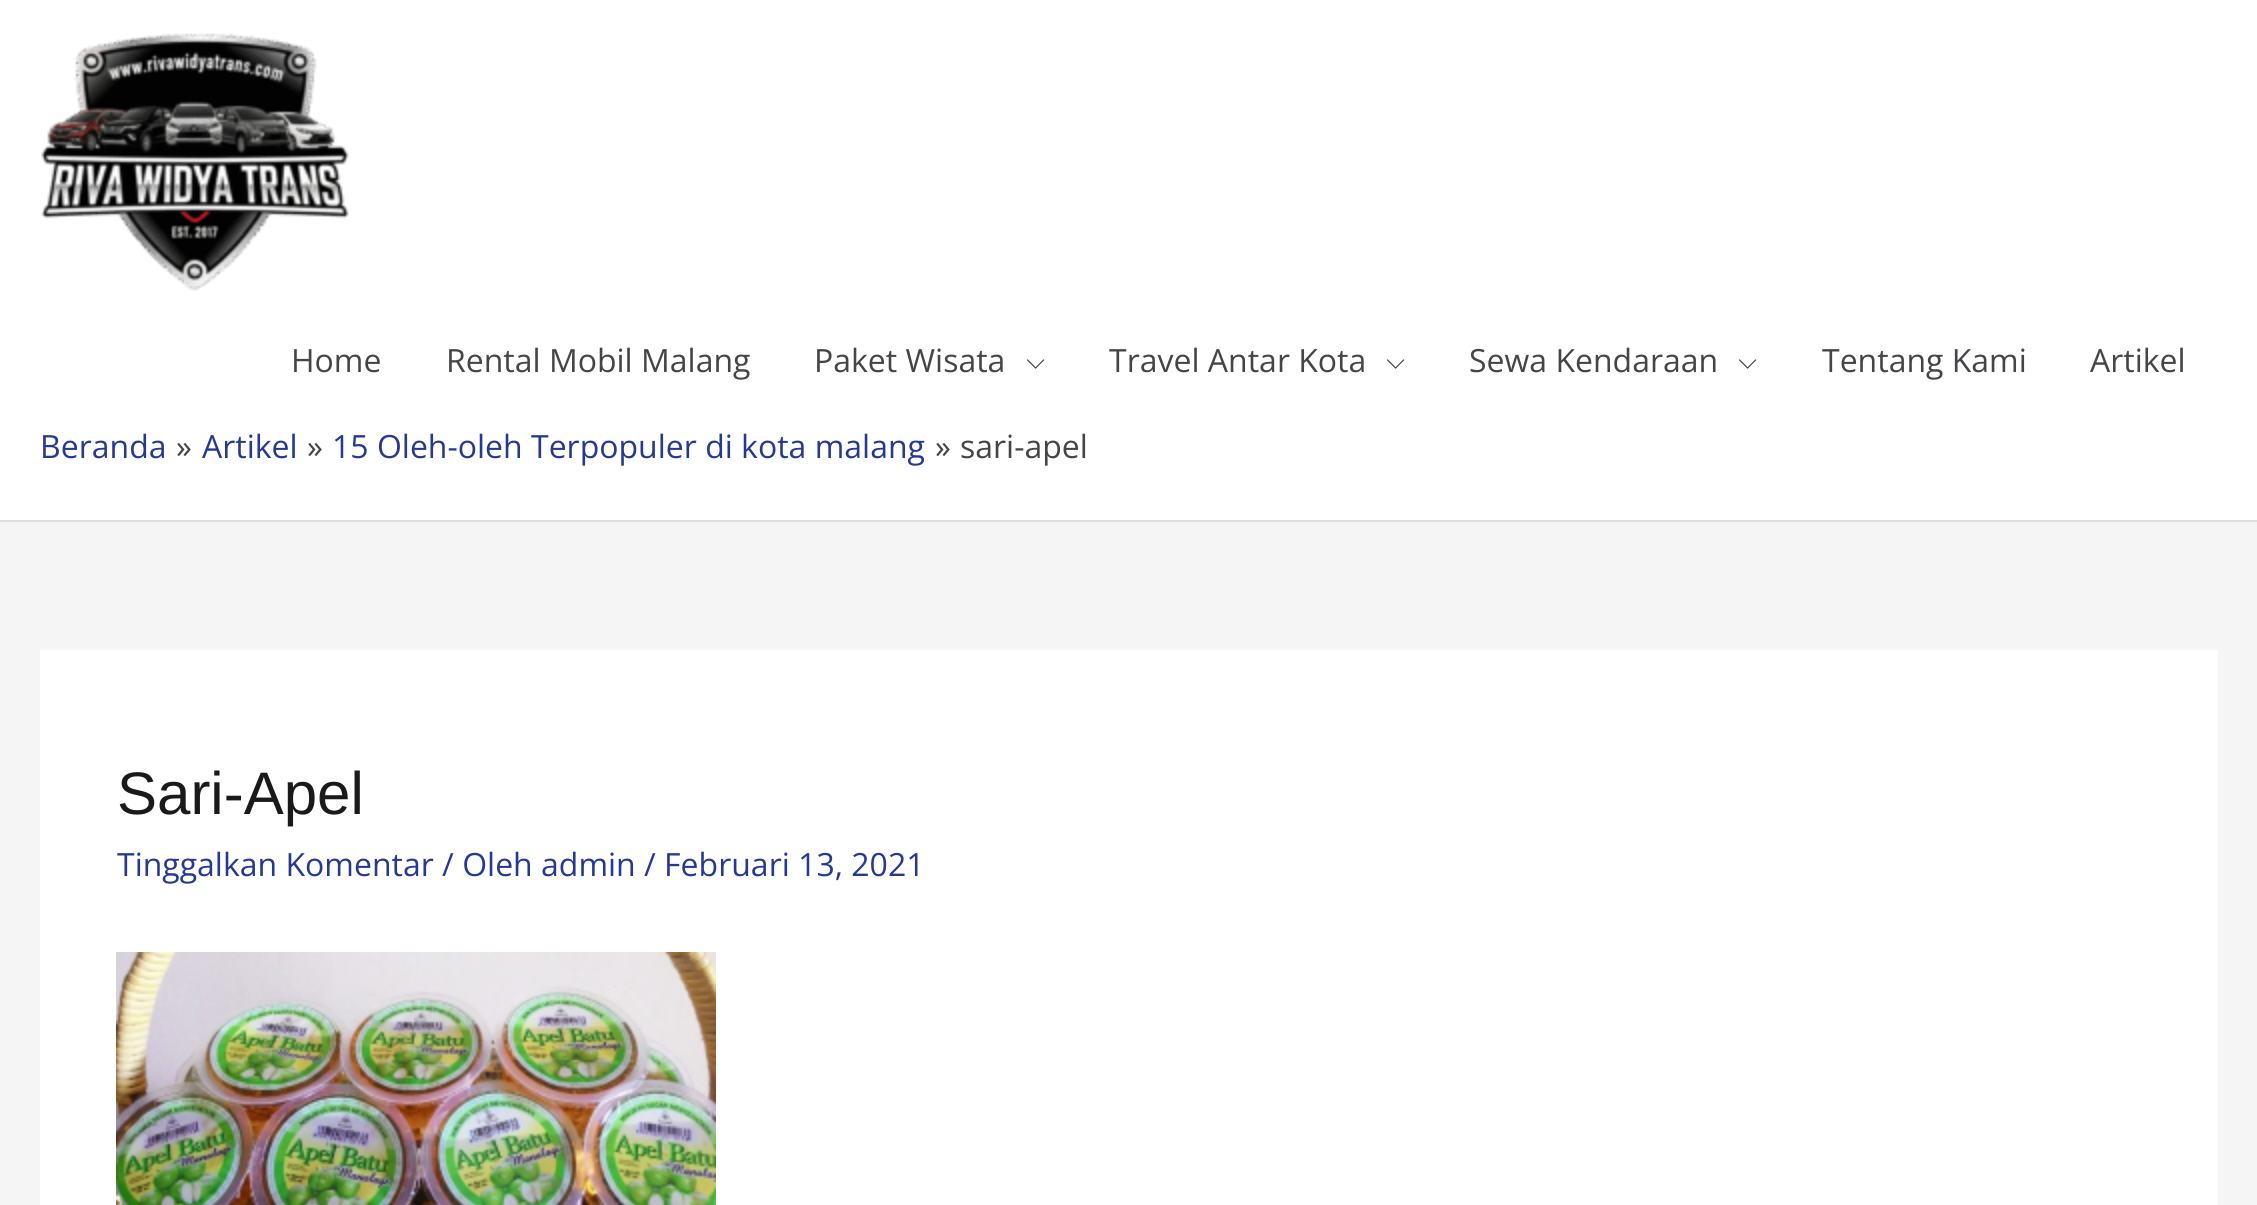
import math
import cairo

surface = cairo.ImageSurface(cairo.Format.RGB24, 2257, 1205)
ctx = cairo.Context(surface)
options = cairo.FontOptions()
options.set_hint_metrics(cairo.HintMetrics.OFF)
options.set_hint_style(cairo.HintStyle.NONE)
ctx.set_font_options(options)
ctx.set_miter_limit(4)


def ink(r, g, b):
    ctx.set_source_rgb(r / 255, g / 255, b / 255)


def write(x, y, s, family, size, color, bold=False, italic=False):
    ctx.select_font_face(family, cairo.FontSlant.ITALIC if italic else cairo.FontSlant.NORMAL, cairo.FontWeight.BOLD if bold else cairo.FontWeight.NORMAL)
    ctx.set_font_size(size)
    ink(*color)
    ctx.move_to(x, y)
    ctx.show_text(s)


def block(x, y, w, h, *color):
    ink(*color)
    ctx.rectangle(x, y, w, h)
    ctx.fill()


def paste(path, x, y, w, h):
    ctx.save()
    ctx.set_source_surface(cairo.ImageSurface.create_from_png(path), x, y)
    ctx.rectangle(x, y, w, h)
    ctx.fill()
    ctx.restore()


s1 = dict(family="Open Sans", size=32, color=(68, 69, 71))
s2 = dict(family="Open Sans", size=32, color=(37, 57, 147))
s3 = dict(family="Liberation Sans", size=60, color=(26, 26, 26))

ink(245, 245, 245)
ctx.paint()
block(0, 0, 2257, 520, 255, 255, 255)
block(0, 520, 2257, 2, 221, 221, 221)
paste("pic1.png", 41, 33, 308, 258)
write(291, 372, "Home", **s1)
write(446, 372, "Rental Mobil Malang", **s1)
write(814, 372, "Paket Wisata", **s1)
paste("pic2.png", 1027, 359, 18, 10)
write(1109, 372, "Travel Antar Kota", **s1)
paste("pic2.png", 1387, 359, 18, 10)
write(1469, 372, "Sewa Kendaraan", **s1)
paste("pic2.png", 1739, 359, 18, 10)
write(1822, 372, "Tentang Kami", **s1)
write(2090, 372, "Artikel", **s1)
write(40, 458, "Beranda", **s2)
write(176, 458, "»", **s1)
write(202, 458, "Artikel", **s2)
write(307, 458, "»", **s1)
write(332, 458, "15 Oleh-oleh Terpopuler di kota malang", **s2)
write(935, 458, "»", **s1)
write(960, 458, "sari-apel", **s1)
block(40, 650, 2178, 555, 255, 255, 255)
write(117, 814, "Sari-Apel", **s3)
write(117, 876, "Tinggalkan Komentar / Oleh admin / Februari 13, 2021", **s2)
paste("pic3.png", 116, 952, 600, 253)
surface.write_to_png("screenshot.png")
